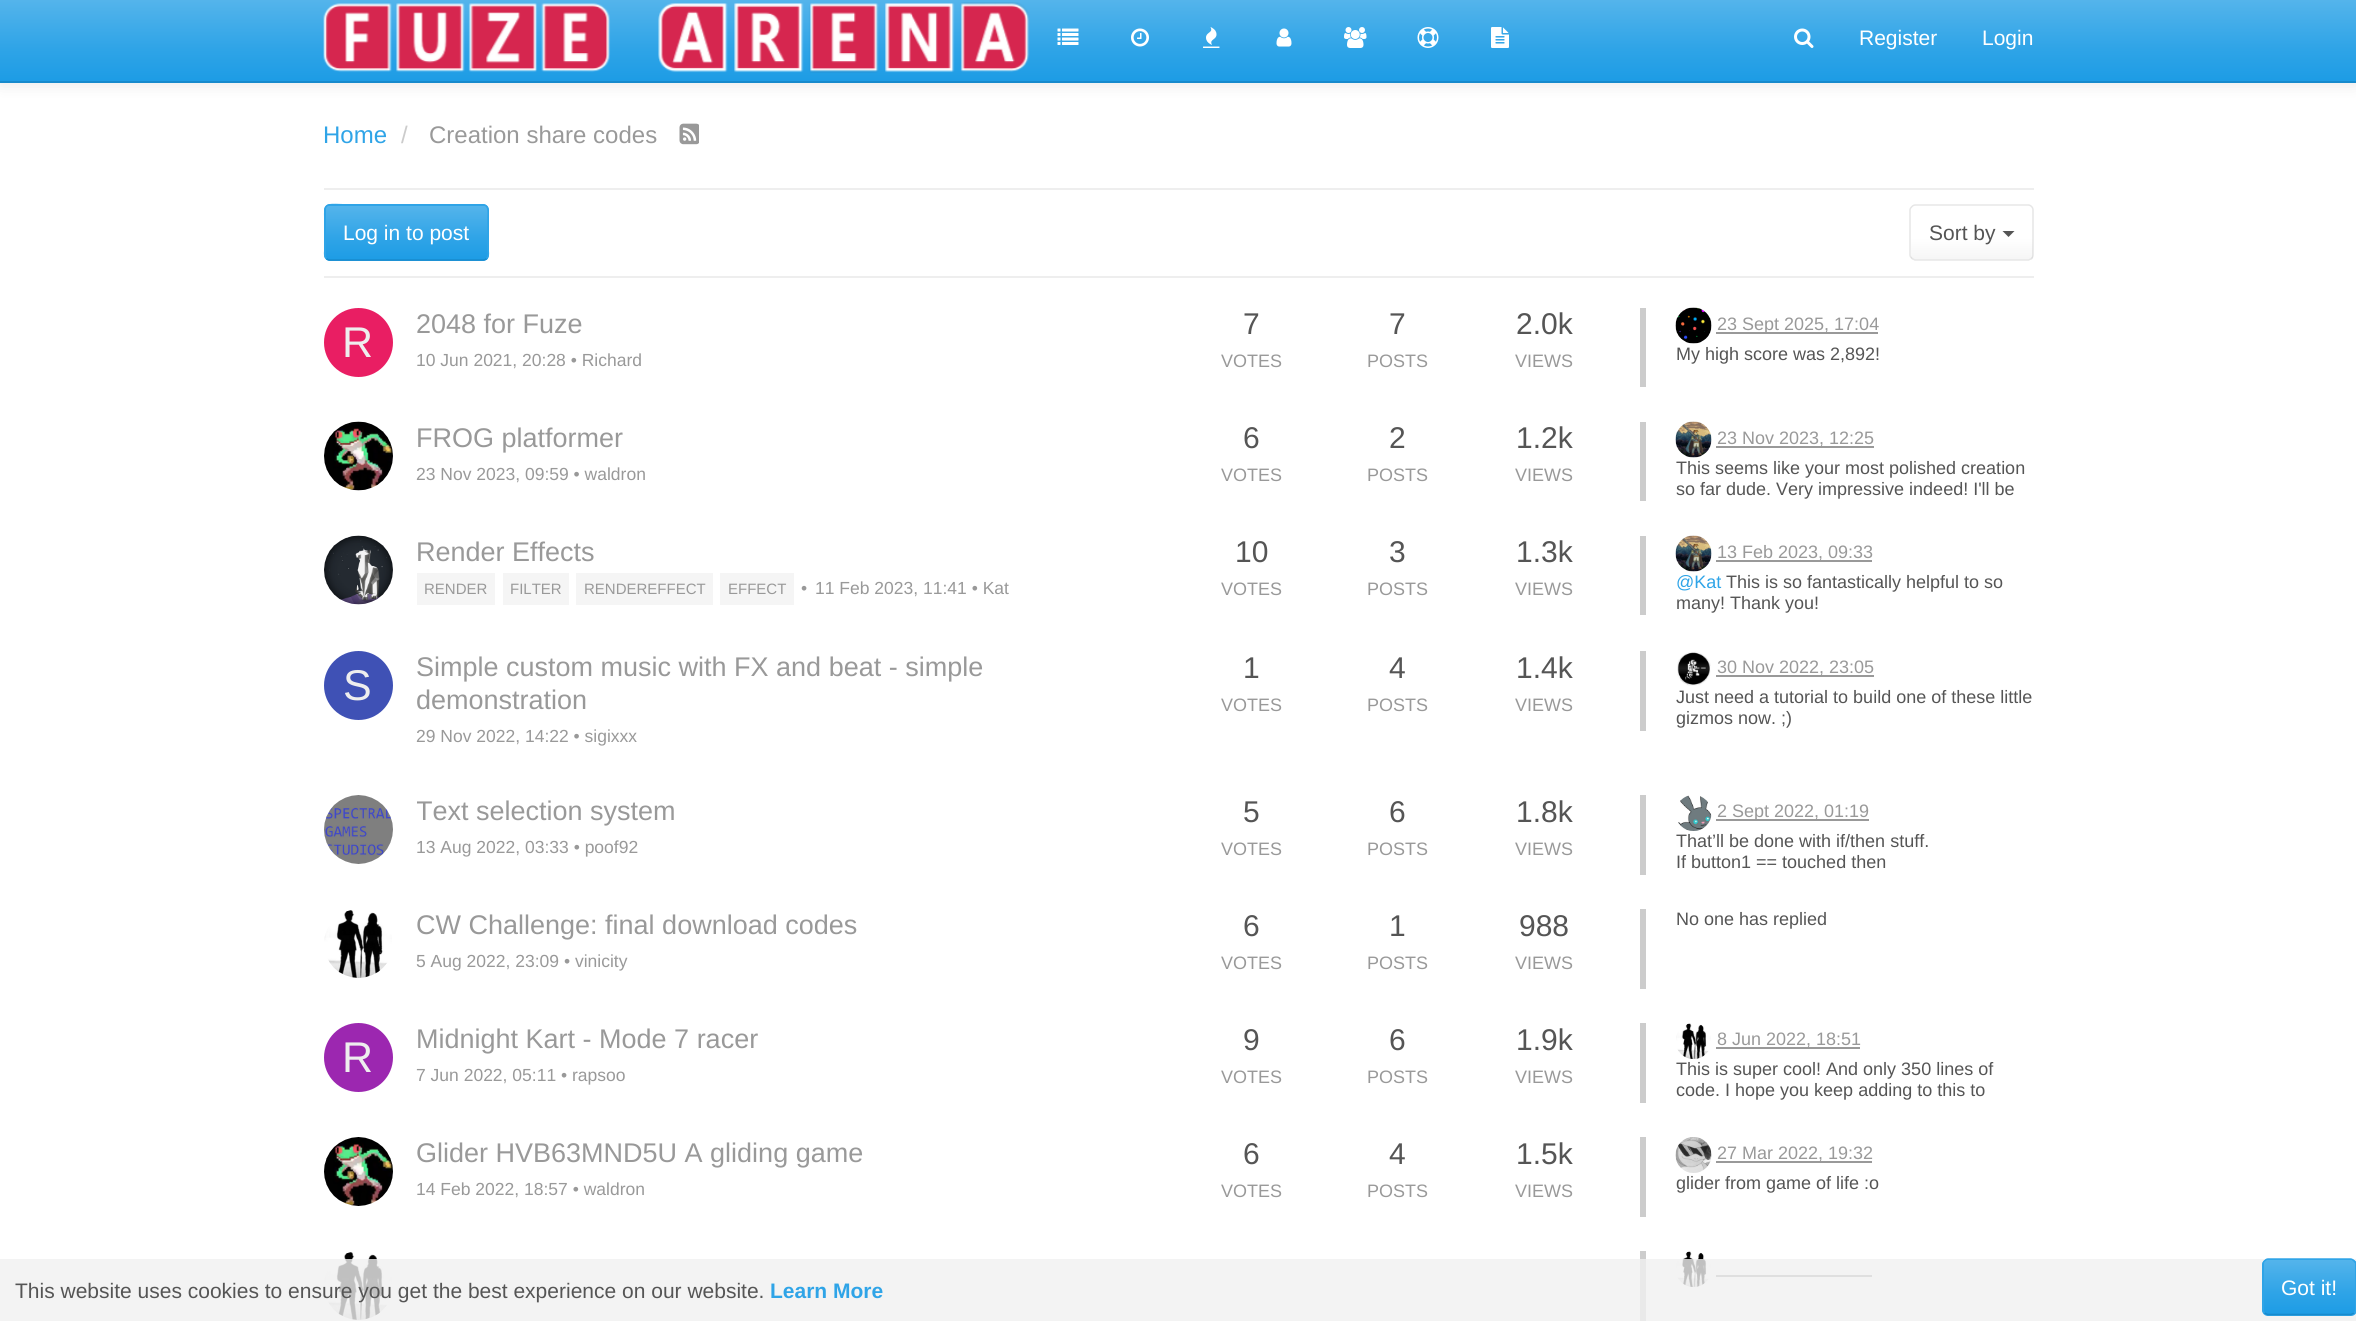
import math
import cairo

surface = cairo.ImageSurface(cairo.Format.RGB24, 2356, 1321)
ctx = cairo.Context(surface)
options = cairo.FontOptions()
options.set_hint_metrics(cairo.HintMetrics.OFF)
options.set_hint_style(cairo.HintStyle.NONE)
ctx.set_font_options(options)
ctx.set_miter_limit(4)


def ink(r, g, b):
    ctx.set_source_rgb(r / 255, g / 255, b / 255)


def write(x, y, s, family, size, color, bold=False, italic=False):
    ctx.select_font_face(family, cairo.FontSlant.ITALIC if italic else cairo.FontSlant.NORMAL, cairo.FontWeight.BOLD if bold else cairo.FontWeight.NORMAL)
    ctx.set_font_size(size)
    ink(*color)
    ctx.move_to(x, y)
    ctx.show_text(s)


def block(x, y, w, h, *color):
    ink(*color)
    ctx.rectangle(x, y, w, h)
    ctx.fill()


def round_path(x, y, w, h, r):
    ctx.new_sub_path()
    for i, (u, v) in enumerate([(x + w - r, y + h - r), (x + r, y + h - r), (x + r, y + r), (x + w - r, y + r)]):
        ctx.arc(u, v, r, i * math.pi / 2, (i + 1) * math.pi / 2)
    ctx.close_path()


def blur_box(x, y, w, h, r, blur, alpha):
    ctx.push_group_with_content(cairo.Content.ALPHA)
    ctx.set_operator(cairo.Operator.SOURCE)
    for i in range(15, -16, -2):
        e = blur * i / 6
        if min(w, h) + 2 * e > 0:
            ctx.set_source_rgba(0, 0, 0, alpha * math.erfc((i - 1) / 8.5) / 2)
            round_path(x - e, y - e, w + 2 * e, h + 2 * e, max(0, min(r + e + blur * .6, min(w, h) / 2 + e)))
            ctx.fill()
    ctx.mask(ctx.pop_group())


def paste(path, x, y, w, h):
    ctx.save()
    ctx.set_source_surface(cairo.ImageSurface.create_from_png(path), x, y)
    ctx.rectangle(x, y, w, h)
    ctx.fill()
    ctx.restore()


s1 = dict(family="Liberation Sans", size=21, color=(255, 255, 255))
s2 = dict(family="Liberation Sans", size=24, color=(47, 164, 231))
s3 = dict(family="Liberation Sans", size=24, color=(204, 204, 204))
s4 = dict(family="Liberation Sans", size=24, color=(153, 153, 153))
s5 = dict(family="Liberation Sans", size=21, color=(85, 85, 85))
s6 = dict(family="Liberation Sans", size=43, color=(238, 238, 238))
s7 = dict(family="Liberation Sans", size=27, color=(153, 153, 153))
s8 = dict(family="Liberation Sans", size=17.5, color=(153, 153, 153))
s9 = dict(family="Liberation Sans", size=30, color=(85, 85, 85))
s10 = dict(family="Liberation Sans", size=18, color=(153, 153, 153))
s11 = dict(family="Liberation Sans", size=18, color=(85, 85, 85))
s12 = dict(family="Liberation Sans", size=15, color=(153, 153, 153))
s13 = dict(family="Liberation Sans", size=18, color=(47, 164, 231))
s14 = dict(family="Liberation Sans", size=21, color=(47, 164, 231), bold=True)

ink(255, 255, 255)
ctx.paint()
ink(0, 0, 0)
blur_box(0, 2, 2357, 82, 0, 7.5, 0.1)
gradient = cairo.LinearGradient(1178, 0, 1178, 81)
gradient.add_color_stop_rgba(0, 0.329, 0.706, 0.922, 1)
gradient.add_color_stop_rgba(0.6, 0.184, 0.643, 0.906, 1)
gradient.add_color_stop_rgba(1, 0.114, 0.612, 0.898, 1)
ctx.set_source(gradient)
ctx.rectangle(0, 0, 2356, 81)
ctx.fill()
block(0, 81, 2356, 2, 23, 138, 204)
paste("pic1.png", 323, 2, 707, 71)
paste("pic2.png", 1057, 28, 22, 17)
paste("pic3.png", 1131, 28, 18, 19)
paste("pic4.png", 1203, 27, 17, 21)
paste("pic5.png", 1276, 28, 16, 19)
paste("pic6.png", 1344, 27, 23, 21)
paste("pic7.png", 1417, 27, 22, 21)
paste("pic8.png", 1491, 27, 18, 21)
paste("pic9.png", 1794, 28, 20, 20)
write(1859, 45, "Register", **s1)
write(1982, 45, "Login", **s1)
write(323, 143, "Home", **s2)
write(401, 143, "/", **s3)
write(429, 143, "Creation share codes", **s4)
paste("pic10.png", 679, 123, 20, 22)
block(324, 188, 1710, 2, 238, 238, 238)
block(324, 276, 1710, 2, 238, 238, 238)
ink(47, 164, 231)
round_path(324, 204, 165, 57, 6)
ctx.fill()
ctx.save()
round_path(324, 204, 165, 57, 6)
ctx.clip()
gradient = cairo.LinearGradient(407, 206, 407, 260)
gradient.add_color_stop_rgba(0, 0.329, 0.706, 0.922, 1)
gradient.add_color_stop_rgba(0.6, 0.184, 0.643, 0.906, 1)
gradient.add_color_stop_rgba(1, 0.114, 0.612, 0.898, 1)
ctx.set_source(gradient)
ctx.rectangle(326, 206, 162, 54)
ctx.fill()
ctx.restore()
ctx.new_path()
ctx.move_to(486.5, 258.5)
ctx.curve_to(485.5, 259.5, 484.5, 260, 483, 260)
ctx.line_to(330, 260)
ctx.curve_to(328.5, 260, 327.5, 259.5, 326.5, 258.5)
ink(23, 138, 204)
ctx.set_line_width(1.5)
ctx.stroke()
ctx.new_path()
ctx.move_to(326.5, 258.5)
ctx.curve_to(323.5, 256, 325, 250.5, 325, 247.5)
ctx.line_to(325, 232.5)
ctx.curve_to(325, 198.5, 319.5, 205, 355.5, 205)
ctx.line_to(483, 205)
ctx.curve_to(489.5, 205, 488, 213.5, 488, 217.5)
ctx.line_to(488, 247.5)
ctx.curve_to(488, 250.5, 489.5, 256, 486.5, 258.5)
ink(47, 164, 231)
ctx.stroke()
write(343, 240, "Log in to post", **s1)
ctx.save()
round_path(1910, 204, 124, 57, 6)
ctx.clip()
gradient = cairo.LinearGradient(1972, 206, 1972, 260)
gradient.add_color_stop_rgba(0, 1, 1, 1, 1)
gradient.add_color_stop_rgba(0.6, 1, 1, 1, 1)
gradient.add_color_stop_rgba(1, 0.961, 0.961, 0.961, 1)
ctx.set_source(gradient)
ctx.rectangle(1911, 206, 122, 54)
ctx.fill()
ctx.restore()
ctx.new_path()
ctx.move_to(2031.5, 258.5)
ctx.line_to(2028.5, 260)
ctx.line_to(1915, 260)
ctx.line_to(1912, 258.5)
ink(230, 230, 230)
ctx.stroke()
ctx.new_path()
ctx.move_to(1912, 258.5)
ctx.curve_to(1911, 257.5, 1910, 256.5, 1910, 255)
ctx.line_to(1910, 210)
ctx.curve_to(1910, 208.5, 1911, 207.5, 1912, 206.5)
ctx.curve_to(1913, 205.5, 1914, 205, 1915.5, 205)
ctx.line_to(2028, 205)
ctx.curve_to(2029.5, 205, 2030.5, 205.5, 2031.5, 206.5)
ctx.curve_to(2032.5, 207.5, 2033, 208.5, 2033, 210)
ctx.line_to(2033, 255)
ctx.curve_to(2033, 256.5, 2032.5, 257.5, 2031.5, 258.5)
ctx.set_source_rgba(0, 0, 0, 0.1)
ctx.stroke()
write(1929, 240, "Sort by", **s5)
ctx.new_path()
ctx.move_to(2002.5, 231)
ctx.line_to(2014.5, 231)
ctx.line_to(2008.5, 237)
ctx.close_path()
ctx.fill()
ink(233, 30, 99)
ctx.arc(358.5, 342.5, 34.5, 0, 2 * math.pi)
ctx.fill()
write(342, 357, "R", **s6)
write(416, 333, "2048 for Fuze", **s7)
write(416, 366, "10 Jun 2021, 20:28 • Richard", **s8)
write(1243, 334, "7", **s9)
write(1221, 367, "VOTES", **s10)
write(1389, 334, "7", **s9)
write(1367, 367, "POSTS", **s10)
write(1516, 334, "2.0k", **s9)
write(1515, 367, "VIEWS", **s10)
block(1640, 308, 6, 79, 204, 204, 204)
paste("pic11.png", 1675, 307, 37, 37)
block(1716, 332, 162, 2, 153, 153, 153)
write(1717, 330, "23 Sept 2025, 17:04", **s10)
write(1676, 360, "My high score was 2,892!", **s11)
paste("pic12.png", 324, 421, 69, 70)
write(416, 447, "FROG platformer", **s7)
write(416, 480, "23 Nov 2023, 09:59 • waldron", **s8)
write(1243, 448, "6", **s9)
write(1221, 481, "VOTES", **s10)
write(1389, 448, "2", **s9)
write(1367, 481, "POSTS", **s10)
write(1516, 448, "1.2k", **s9)
write(1515, 481, "VIEWS", **s10)
block(1640, 422, 6, 79, 204, 204, 204)
paste("pic13.png", 1675, 421, 37, 37)
block(1716, 446, 158, 2, 153, 153, 153)
write(1717, 444, "23 Nov 2023, 12:25", **s10)
write(1676, 474, "This seems like your most polished creation", **s11)
write(1676, 495, "so far dude. Very impressive indeed! I'll be", **s11)
paste("pic14.png", 324, 535, 69, 70)
write(416, 561, "Render Effects", **s7)
block(417, 573, 78, 32, 245, 245, 245)
write(424, 594, "RENDER", **s12)
block(503, 573, 66, 32, 245, 245, 245)
write(510, 594, "FILTER", **s12)
block(576, 573, 137, 32, 245, 245, 245)
write(584, 594, "RENDEREFFECT", **s12)
block(720, 573, 74, 32, 245, 245, 245)
write(728, 594, "EFFECT", **s12)
write(801, 594, "•", **s8)
write(815, 594, "11 Feb 2023, 11:41 • Kat", **s8)
write(1235, 562, "10", **s9)
write(1221, 595, "VOTES", **s10)
write(1389, 562, "3", **s9)
write(1367, 595, "POSTS", **s10)
write(1516, 562, "1.3k", **s9)
write(1515, 595, "VIEWS", **s10)
block(1640, 536, 6, 79, 204, 204, 204)
paste("pic13.png", 1675, 535, 37, 37)
block(1716, 560, 156, 2, 153, 153, 153)
write(1717, 558, "13 Feb 2023, 09:33", **s10)
write(1676, 588, "@Kat", **s13)
write(1726, 588, "This is so fantastically helpful to so", **s11)
write(1676, 609, "many! Thank you!", **s11)
ink(63, 81, 181)
ctx.new_path()
ctx.arc(358.5, 685.5, 34.5, 0, 2 * math.pi)
ctx.fill()
write(343, 700, "S", **s6)
write(416, 676, "Simple custom music with FX and beat - simple", **s7)
write(416, 709, "demonstration", **s7)
write(416, 742, "29 Nov 2022, 14:22 • sigixxx", **s8)
write(1243, 678, "1", **s9)
write(1221, 711, "VOTES", **s10)
write(1389, 678, "4", **s9)
write(1367, 711, "POSTS", **s10)
write(1516, 678, "1.4k", **s9)
write(1515, 711, "VIEWS", **s10)
block(1640, 651, 6, 80, 204, 204, 204)
paste("pic15.png", 1677, 651, 34, 35)
block(1716, 675, 158, 2, 153, 153, 153)
write(1717, 673, "30 Nov 2022, 23:05", **s10)
write(1676, 703, "Just need a tutorial to build one of these little", **s11)
write(1676, 724, "gizmos now. ;)", **s11)
paste("pic16.png", 324, 795, 69, 69)
ctx.save()
ctx.rectangle(417, 795, 740, 66)
ctx.clip()
write(416, 820, "Text selection system", **s7)
ctx.restore()
write(416, 853, "13 Aug 2022, 03:33 • poof92", **s8)
write(1243, 822, "5", **s9)
write(1221, 855, "VOTES", **s10)
write(1389, 822, "6", **s9)
write(1367, 855, "POSTS", **s10)
write(1516, 822, "1.8k", **s9)
write(1515, 855, "VIEWS", **s10)
block(1640, 795, 6, 80, 204, 204, 204)
paste("pic17.png", 1678, 795, 34, 36)
block(1716, 819, 153, 2, 153, 153, 153)
write(1717, 817, "2 Sept 2022, 01:19", **s10)
write(1676, 847, "That’ll be done with if/then stuff.", **s11)
write(1676, 868, "If button1 == touched then", **s11)
paste("pic18.png", 324, 910, 68, 68)
write(416, 934, "CW Challenge: final download codes", **s7)
write(416, 967, "5 Aug 2022, 23:09 • vinicity", **s8)
write(1243, 936, "6", **s9)
write(1221, 969, "VOTES", **s10)
write(1389, 936, "1", **s9)
write(1367, 969, "POSTS", **s10)
write(1519, 936, "988", **s9)
write(1515, 969, "VIEWS", **s10)
block(1640, 909, 6, 80, 204, 204, 204)
write(1676, 925, "No one has replied", **s11)
ink(156, 39, 176)
ctx.new_path()
ctx.arc(358.5, 1057.5, 34.5, 0, 2 * math.pi)
ctx.fill()
write(342, 1072, "R", **s6)
write(416, 1048, "Midnight Kart - Mode 7 racer", **s7)
write(416, 1081, "7 Jun 2022, 05:11 • rapsoo", **s8)
write(1243, 1050, "9", **s9)
write(1221, 1083, "VOTES", **s10)
write(1389, 1050, "6", **s9)
write(1367, 1083, "POSTS", **s10)
write(1516, 1050, "1.9k", **s9)
write(1515, 1083, "VIEWS", **s10)
block(1640, 1023, 6, 80, 204, 204, 204)
paste("pic19.png", 1676, 1023, 35, 36)
block(1716, 1047, 144, 2, 153, 153, 153)
write(1717, 1045, "8 Jun 2022, 18:51", **s10)
write(1676, 1075, "This is super cool! And only 350 lines of", **s11)
write(1676, 1096, "code. I hope you keep adding to this to", **s11)
paste("pic20.png", 324, 1137, 69, 69)
write(416, 1162, "Glider HVB63MND5U A gliding game", **s7)
write(416, 1195, "14 Feb 2022, 18:57 • waldron", **s8)
write(1243, 1164, "6", **s9)
write(1221, 1197, "VOTES", **s10)
write(1389, 1164, "4", **s9)
write(1367, 1197, "POSTS", **s10)
write(1516, 1164, "1.5k", **s9)
write(1515, 1197, "VIEWS", **s10)
block(1640, 1137, 6, 80, 204, 204, 204)
paste("pic21.png", 1675, 1137, 37, 36)
block(1716, 1161, 156, 2, 153, 153, 153)
write(1717, 1159, "27 Mar 2022, 19:32", **s10)
write(1676, 1189, "glider from game of life :o", **s11)
paste("pic22.png", 324, 1252, 68, 68)
block(1640, 1251, 6, 70, 204, 204, 204)
paste("pic23.png", 1676, 1251, 35, 36)
block(1716, 1275, 156, 2, 153, 153, 153)
ctx.set_source_rgba(0.941, 0.941, 0.941, 0.8)
ctx.rectangle(0, 1259, 2356, 62)
ctx.fill()
write(15, 1298, "This website uses cookies to ensure you get the best experience on our website.", **s5)
write(770, 1298, "Learn More", **s14)
round_path(2262, 1259, 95, 57, 6)
ctx.fill()
gradient = cairo.LinearGradient(2309, 1260, 2309, 1314)
gradient.add_color_stop_rgba(0, 0.329, 0.706, 0.922, 1)
gradient.add_color_stop_rgba(0.6, 0.184, 0.643, 0.906, 1)
gradient.add_color_stop_rgba(1, 0.114, 0.612, 0.898, 1)
ctx.set_source(gradient)
ctx.rectangle(2264, 1260, 91, 54)
ctx.fill()
ctx.new_path()
ctx.move_to(2354, 1313)
ctx.line_to(2351, 1314.5)
ctx.line_to(2267.5, 1314.5)
ctx.line_to(2264.5, 1313)
ink(23, 138, 204)
ctx.stroke()
ctx.new_path()
ctx.move_to(2264.5, 1313)
ctx.curve_to(2263.5, 1312, 2263, 1311, 2263, 1309.5)
ctx.line_to(2263, 1264.5)
ctx.curve_to(2263, 1263, 2263.5, 1262, 2264.5, 1261)
ctx.curve_to(2265.5, 1260, 2266.5, 1259, 2268, 1259)
ctx.line_to(2350.5, 1259)
ctx.curve_to(2352, 1259, 2353, 1260, 2354, 1261)
ctx.curve_to(2355, 1262, 2356, 1263, 2356, 1264.5)
ctx.line_to(2356, 1309.5)
ctx.curve_to(2356, 1311, 2355, 1312, 2354, 1313)
ink(47, 164, 231)
ctx.stroke()
write(2281, 1295, "Got it!", **s1)
surface.write_to_png("screenshot.png")
